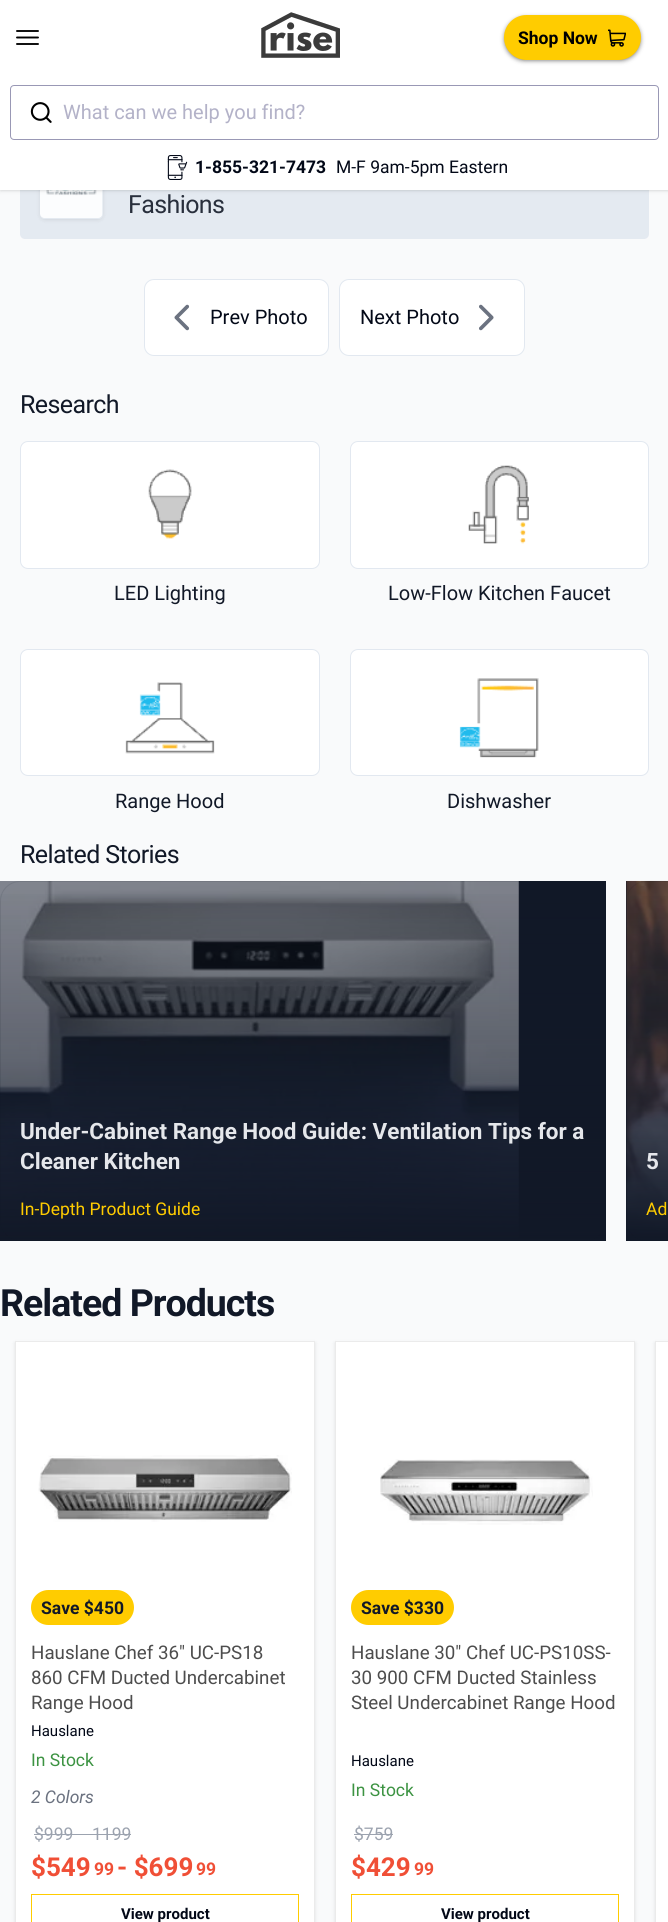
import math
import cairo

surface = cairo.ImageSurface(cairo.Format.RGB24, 668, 1922)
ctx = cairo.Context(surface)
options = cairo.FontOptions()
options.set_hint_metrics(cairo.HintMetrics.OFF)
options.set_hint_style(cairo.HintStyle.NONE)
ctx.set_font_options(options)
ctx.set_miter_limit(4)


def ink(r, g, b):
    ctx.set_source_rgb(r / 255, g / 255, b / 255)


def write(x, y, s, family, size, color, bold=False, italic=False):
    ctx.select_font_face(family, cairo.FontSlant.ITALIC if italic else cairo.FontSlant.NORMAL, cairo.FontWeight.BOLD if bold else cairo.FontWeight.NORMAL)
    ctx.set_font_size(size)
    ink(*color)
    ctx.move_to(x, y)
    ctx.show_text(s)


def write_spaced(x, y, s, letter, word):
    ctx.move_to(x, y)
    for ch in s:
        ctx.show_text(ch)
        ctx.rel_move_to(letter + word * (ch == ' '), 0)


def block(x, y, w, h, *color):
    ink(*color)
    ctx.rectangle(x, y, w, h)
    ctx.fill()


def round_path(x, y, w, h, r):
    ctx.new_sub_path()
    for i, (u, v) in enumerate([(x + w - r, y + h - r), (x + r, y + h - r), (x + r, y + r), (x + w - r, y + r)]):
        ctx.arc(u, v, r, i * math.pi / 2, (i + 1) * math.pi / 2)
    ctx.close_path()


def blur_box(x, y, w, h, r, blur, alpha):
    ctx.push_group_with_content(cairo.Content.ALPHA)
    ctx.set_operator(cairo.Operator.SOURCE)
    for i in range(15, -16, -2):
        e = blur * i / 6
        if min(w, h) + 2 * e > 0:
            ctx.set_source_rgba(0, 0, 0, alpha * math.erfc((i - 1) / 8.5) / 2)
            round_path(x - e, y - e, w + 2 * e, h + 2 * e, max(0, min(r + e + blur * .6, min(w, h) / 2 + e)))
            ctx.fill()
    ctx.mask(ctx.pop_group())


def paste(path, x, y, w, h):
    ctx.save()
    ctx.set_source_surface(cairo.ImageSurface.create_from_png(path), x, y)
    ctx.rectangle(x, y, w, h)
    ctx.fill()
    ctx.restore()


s1 = dict(family="Roboto", size=17.5, color=(0, 0, 0), bold=True)
s2 = dict(family="Roboto", size=20, color=(179, 178, 200))
s3 = dict(family="Roboto", size=17.5, color=(2, 8, 23), bold=True)
s4 = dict(family="Roboto", size=17.5, color=(2, 8, 23))
s5 = dict(family="Roboto", size=20, color=(2, 8, 23))
s6 = dict(family="Roboto", size=20, color=(17, 24, 39))
s7 = dict(family="Roboto", size=22.5, color=(229, 231, 235), bold=True)
s8 = dict(family="Roboto", size=17.5, color=(255, 204, 0))
s9 = dict(family="Roboto", size=17.5, color=(17, 24, 39), bold=True)
s10 = dict(family="Roboto", size=18.75, color=(77, 77, 77))
s11 = dict(family="Roboto", size=15, color=(2, 8, 23))
s12 = dict(family="Roboto", size=17.5, color=(60, 147, 66))
s13 = dict(family="Roboto", size=17.5, color=(107, 114, 128), italic=True)
s14 = dict(family="Roboto", size=17.5, color=(156, 163, 175))
s15 = dict(family="Roboto", size=26, color=(240, 79, 54), bold=True)
s16 = dict(family="Roboto", size=17.5, color=(240, 79, 54), bold=True)
s17 = dict(family="Roboto", size=15, color=(2, 8, 23), bold=True)

ink(249, 250, 251)
ctx.paint()
ctx.set_source_rgba(0.886, 0.91, 0.941, 0.9)
round_path(20, 136, 629, 103, 5)
ctx.fill()
ctx.save()
ctx.set_fill_rule(cairo.FillRule.EVEN_ODD)
ctx.new_path()
ctx.move_to(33, 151)
ctx.line_to(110, 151)
ctx.line_to(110, 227)
ctx.line_to(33, 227)
ctx.close_path()
ctx.move_to(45, 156)
ctx.line_to(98, 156)
ctx.curve_to(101, 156, 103, 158, 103, 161)
ctx.line_to(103, 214)
ctx.curve_to(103, 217, 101, 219, 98, 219)
ctx.line_to(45, 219)
ctx.curve_to(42, 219, 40, 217, 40, 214)
ctx.line_to(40, 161)
ctx.curve_to(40, 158, 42, 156, 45, 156)
ctx.close_path()
ctx.clip()
ink(25, 25, 25)
blur_box(40, 158, 63, 62, 5, 2, 0.1)
ctx.restore()
paste("pic5.png", 40, 190, 63, 28)
ink(0, 0, 0)
blur_box(1, 3, 667, 187, 0, 1, 0.1)
blur_box(0, 1, 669, 190, 0, 2, 0.1)
block(0, 0, 668, 190, 255, 255, 255)
ctx.new_path()
ctx.move_to(17, 31)
ctx.line_to(38, 31)
ctx.move_to(17, 37.5)
ctx.line_to(38, 37.5)
ctx.move_to(17, 44)
ctx.line_to(38, 44)
ink(0, 0, 0)
ctx.set_line_width(1.9)
ctx.set_line_cap(cairo.LineCap.ROUND)
ctx.set_line_join(cairo.LineJoin.ROUND)
ctx.stroke()
paste("pic1.png", 261, 12, 79, 46)
ink(0, 0, 0)
blur_box(505, 18, 135, 42, 21, 2.5, 0.64)
ink(255, 204, 0)
round_path(504, 15, 137, 45, 22.5)
ctx.fill()
write(518, 44, "Shop Now", **s1)
paste("pic2.png", 608, 29, 18, 18)
round_path(10.5, 85.5, 648, 54, 3.5)
ink(153, 152, 181)
ctx.set_line_width(1)
ctx.set_line_cap(cairo.LineCap.BUTT)
ctx.set_line_join(cairo.LineJoin.MITER)
ctx.stroke()
paste("pic3.png", 30, 102, 22, 21)
write(63, 119, "What can we help you find?", **s2)
paste("pic4.png", 167, 155, 21, 25)
write(195, 173, "1-855-321-7473", **s3)
write(336, 173, "M-F 9am-5pm Eastern", **s4)
ctx.set_font_size(25)
ink(40, 47, 60)
write_spaced(128, 213, "Fashions", -0.6, 0)
ink(255, 255, 255)
round_path(144.5, 279.5, 184, 76, 9.5)
ctx.fill_preserve()
ink(226, 232, 240)
ctx.stroke()
paste("pic6.png", 174, 304, 16, 27)
write(210, 324, "Prev Photo", **s5)
ink(255, 255, 255)
round_path(339.5, 279.5, 185, 76, 9.5)
ctx.fill_preserve()
ink(226, 232, 240)
ctx.stroke()
write(360, 324, "Next Photo", **s5)
paste("pic7.png", 479, 304, 15, 27)
ctx.set_font_size(25)
ink(17, 24, 39)
write_spaced(20, 413, "Research", -0.6, 0)
ink(255, 255, 255)
round_path(20.5, 441.5, 299, 127, 7.5)
ctx.fill_preserve()
ink(226, 232, 240)
ctx.stroke()
paste("pic8.png", 148, 469, 44, 70)
write(114, 600, "LED Lighting", **s6)
ink(255, 255, 255)
round_path(350.5, 441.5, 298, 127, 7.5)
ctx.fill_preserve()
ink(226, 232, 240)
ctx.stroke()
paste("pic9.png", 468, 465, 61, 79)
write(388, 600, "Low-Flow Kitchen Faucet", **s6)
ink(255, 255, 255)
round_path(20.5, 649.5, 299, 126, 7.5)
ctx.fill_preserve()
ink(226, 232, 240)
ctx.stroke()
paste("pic10.png", 125, 682, 90, 72)
write(115, 808, "Range Hood", **s6)
ink(255, 255, 255)
round_path(350.5, 649.5, 298, 126, 7.5)
ctx.fill_preserve()
ink(226, 232, 240)
ctx.stroke()
paste("pic11.png", 459, 678, 80, 80)
write(447, 808, "Dishwasher", **s6)
ctx.set_font_size(25)
write_spaced(20, 863, "Related Stories", -0.6, 0)
block(0, 881, 606, 358, 17, 24, 39)
paste("pic12.png", 0, 881, 519, 358)
gradient = cairo.LinearGradient(303, 1241, 303, 881)
gradient.add_color_stop_rgba(0, 0.067, 0.094, 0.153, 1)
gradient.add_color_stop_rgba(0.5, 0.067, 0.094, 0.153, 0.3)
gradient.add_color_stop_rgba(1, 0.067, 0.094, 0.153, 0)
ctx.set_source(gradient)
ctx.rectangle(0, 894, 606, 347)
ctx.fill()
round_path(0.5, 881.5, 605, 359, 19.5)
ctx.set_source_rgba(0.067, 0.094, 0.153, 0.1)
ctx.stroke()
write(20, 1139, "Under-Cabinet Range Hood Guide: Ventilation Tips for a", **s7)
write(20, 1169, "Cleaner Kitchen", **s7)
write(20, 1215, "In-Depth Product Guide", **s8)
block(626, 881, 42, 358, 17, 24, 39)
paste("pic13.png", 626, 880, 42, 359)
gradient = cairo.LinearGradient(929, 1241, 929, 881)
gradient.add_color_stop_rgba(0, 0.067, 0.094, 0.153, 1)
gradient.add_color_stop_rgba(0.5, 0.067, 0.094, 0.153, 0.3)
gradient.add_color_stop_rgba(1, 0.067, 0.094, 0.153, 0)
ctx.set_source(gradient)
ctx.rectangle(626, 896, 42, 345)
ctx.fill()
round_path(626.5, 881.5, 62, 359, 19.5)
ctx.set_source_rgba(0.067, 0.094, 0.153, 0.1)
ctx.stroke()
write(646, 1169, "5", **s7)
write(646, 1215, "Ad", **s8)
ctx.select_font_face("Roboto", cairo.FontSlant.NORMAL, cairo.FontWeight.BOLD)
ctx.set_font_size(37.5)
ink(17, 24, 39)
write_spaced(0, 1316, "Related Products", -1, 0)
ink(0, 0, 0)
blur_box(15, 1343, 300, 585, 0, 2, 0.1)
ink(255, 255, 255)
ctx.rectangle(15.5, 1341.5, 299, 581)
ctx.fill_preserve()
ink(235, 235, 235)
ctx.stroke()
paste("pic14.png", 38, 1455, 254, 67)
ink(255, 204, 0)
round_path(31, 1590, 103, 35, 17.5)
ctx.fill()
write(41, 1614, "Save $450", **s9)
write(31, 1659, "Hauslane Chef 36\" UC-PS18", **s10)
write(31, 1684, "860 CFM Ducted Undercabinet", **s10)
write(31, 1709, "Range Hood", **s10)
write(31, 1736, "Hauslane", **s11)
write(31, 1766, "In Stock", **s12)
write(31, 1803, "2 Colors", **s13)
write(34, 1840, "$999", **s14)
block(34, 1834, 59, 1, 156, 163, 175)
write(92, 1840, "1199", **s14)
block(93, 1834, 38, 1, 156, 163, 175)
write(31, 1876, "$549", **s15)
write(94, 1875, "99", **s16)
write(117, 1876, "- $699", **s15)
write(196, 1875, "99", **s16)
ctx.rectangle(31.5, 1894.5, 267, 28)
ink(255, 204, 0)
ctx.stroke()
write(121, 1919, "View product", **s17)
ink(0, 0, 0)
blur_box(335, 1343, 300, 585, 0, 2, 0.1)
ink(255, 255, 255)
ctx.rectangle(335.5, 1341.5, 299, 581)
ctx.fill_preserve()
ink(235, 235, 235)
ctx.stroke()
paste("pic15.png", 380, 1459, 213, 66)
ink(255, 204, 0)
round_path(351, 1590, 103, 35, 17.5)
ctx.fill()
write(361, 1614, "Save $330", **s9)
write(351, 1659, "Hauslane 30\" Chef UC-PS10SS-", **s10)
write(351, 1684, "30 900 CFM Ducted Stainless", **s10)
write(351, 1709, "Steel Undercabinet Range Hood", **s10)
write(351, 1766, "Hauslane", **s11)
write(351, 1796, "In Stock", **s12)
write(354, 1840, "$759", **s14)
block(354, 1834, 39, 1, 156, 163, 175)
write(351, 1876, "$429", **s15)
write(414, 1875, "99", **s16)
ctx.rectangle(351.5, 1894.5, 267, 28)
ink(255, 204, 0)
ctx.stroke()
write(441, 1919, "View product", **s17)
ink(0, 0, 0)
blur_box(655, 1343, 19, 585, 0, 2, 0.1)
ink(255, 255, 255)
ctx.rectangle(655.5, 1341.5, 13, 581)
ctx.fill_preserve()
ink(235, 235, 235)
ctx.stroke()
surface.write_to_png("screenshot.png")
